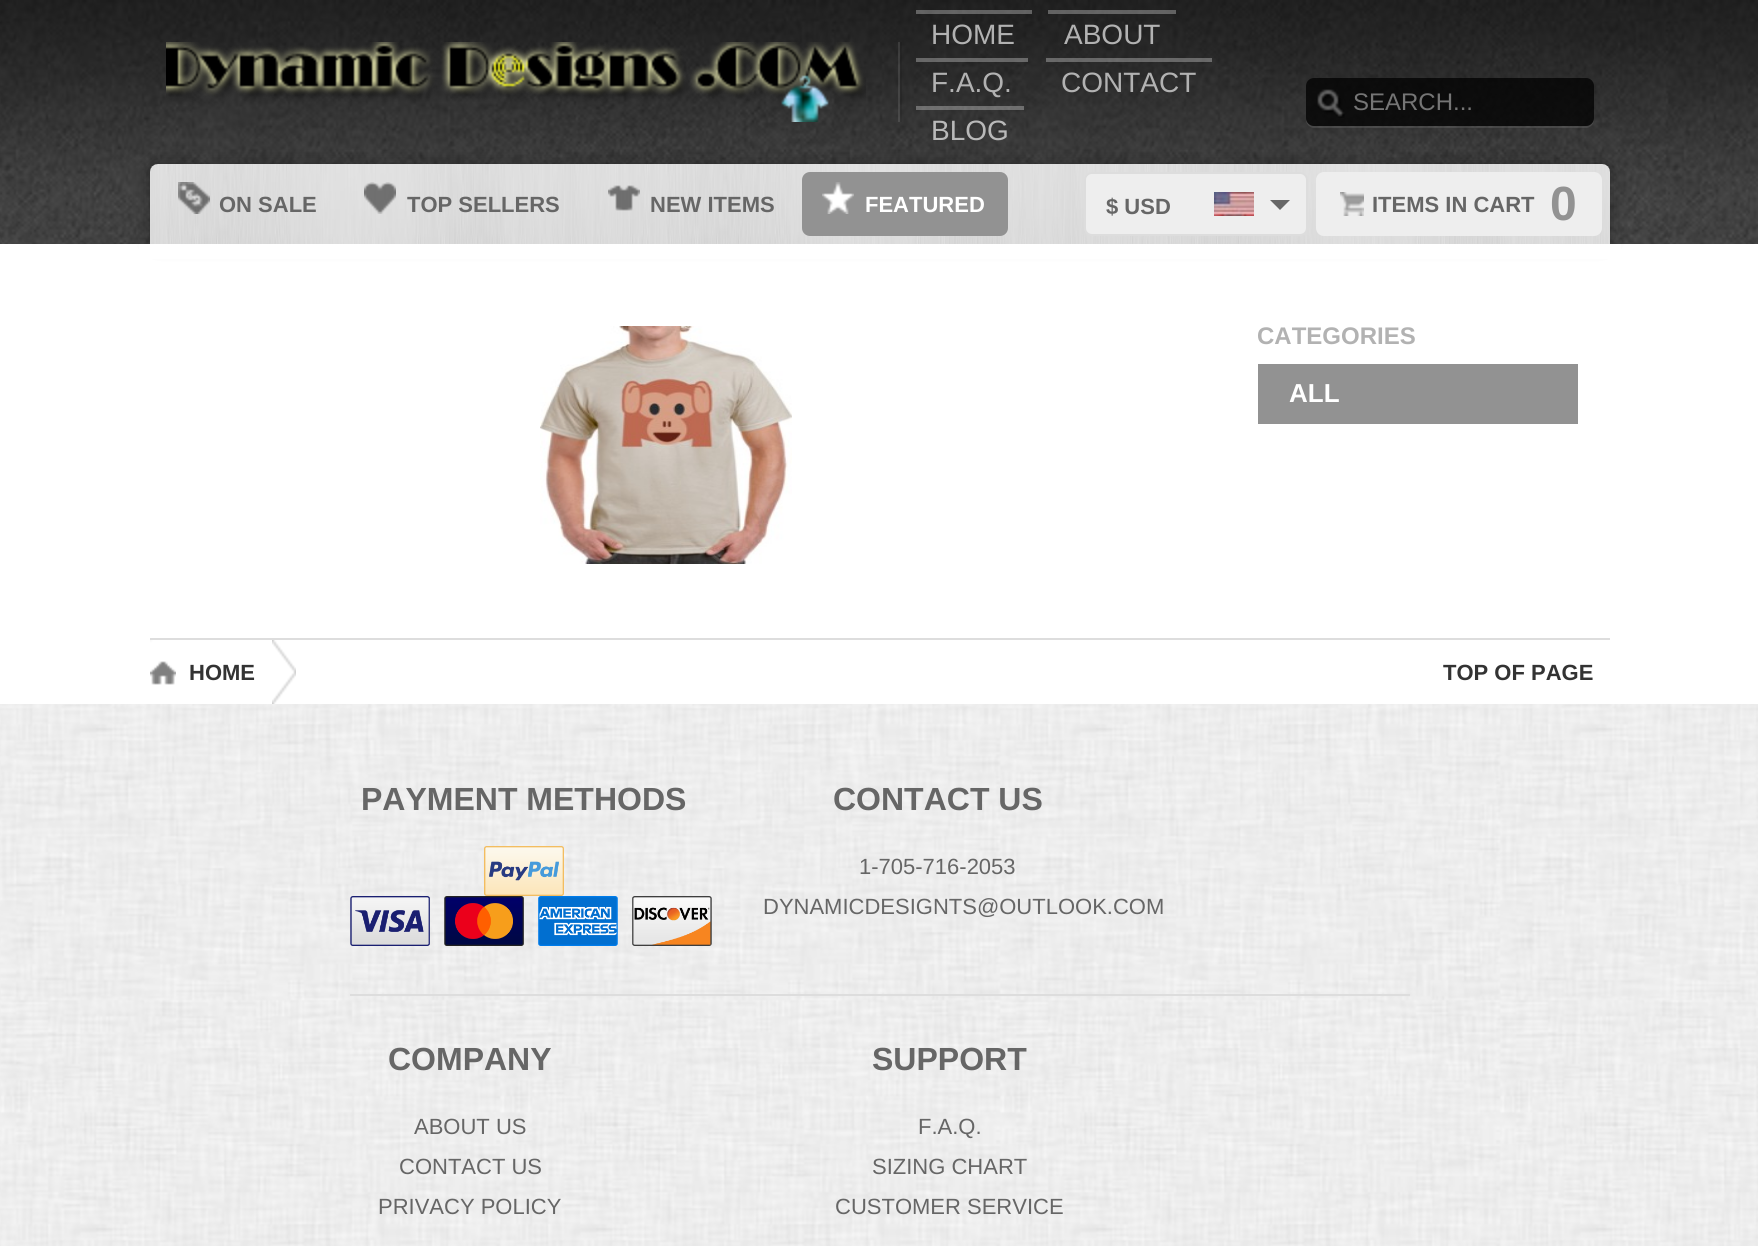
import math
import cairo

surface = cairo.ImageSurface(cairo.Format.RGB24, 1758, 1246)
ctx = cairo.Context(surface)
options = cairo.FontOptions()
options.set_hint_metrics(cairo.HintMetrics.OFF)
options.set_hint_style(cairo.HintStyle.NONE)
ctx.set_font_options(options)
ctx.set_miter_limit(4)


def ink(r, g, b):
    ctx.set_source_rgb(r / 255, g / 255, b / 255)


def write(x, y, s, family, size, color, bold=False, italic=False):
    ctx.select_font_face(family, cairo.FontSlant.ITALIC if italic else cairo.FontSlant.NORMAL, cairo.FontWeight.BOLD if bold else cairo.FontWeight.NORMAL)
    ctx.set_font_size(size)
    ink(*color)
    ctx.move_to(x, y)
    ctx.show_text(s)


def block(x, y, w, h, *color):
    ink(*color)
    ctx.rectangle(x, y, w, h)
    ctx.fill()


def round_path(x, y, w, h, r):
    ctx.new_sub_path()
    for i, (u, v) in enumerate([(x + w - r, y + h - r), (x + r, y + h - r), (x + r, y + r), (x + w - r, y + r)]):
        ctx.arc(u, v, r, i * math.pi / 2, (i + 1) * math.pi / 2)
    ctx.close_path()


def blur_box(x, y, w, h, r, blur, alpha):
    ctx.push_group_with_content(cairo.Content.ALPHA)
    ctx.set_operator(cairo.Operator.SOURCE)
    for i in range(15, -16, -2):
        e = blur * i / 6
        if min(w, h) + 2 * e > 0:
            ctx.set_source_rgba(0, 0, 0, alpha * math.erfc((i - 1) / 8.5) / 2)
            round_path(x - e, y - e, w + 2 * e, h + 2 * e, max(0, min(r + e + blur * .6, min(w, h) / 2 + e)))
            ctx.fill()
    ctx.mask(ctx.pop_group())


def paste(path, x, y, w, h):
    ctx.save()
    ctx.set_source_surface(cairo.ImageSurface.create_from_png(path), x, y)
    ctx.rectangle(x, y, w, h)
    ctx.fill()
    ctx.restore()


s1 = dict(family="Liberation Sans", size=28, color=(178, 178, 178))
s2 = dict(family="Liberation Sans", size=28, color=(185, 185, 185))
s3 = dict(family="Liberation Sans", size=24, color=(117, 117, 117))
s4 = dict(family="Liberation Sans", size=22, color=(102, 102, 102), bold=True)
s5 = dict(family="Liberation Sans", size=22, color=(255, 255, 255), bold=True)
s6 = dict(family="Liberation Sans", size=48, color=(146, 146, 146), bold=True)
s7 = dict(family="Liberation Sans", size=24, color=(178, 178, 178), bold=True)
s8 = dict(family="Liberation Sans", size=26, color=(255, 255, 255), bold=True)
s9 = dict(family="Liberation Sans", size=22, color=(51, 51, 51), bold=True)
s10 = dict(family="Liberation Sans", size=32, color=(102, 102, 102), bold=True)
s11 = dict(family="Liberation Sans", size=22, color=(102, 102, 102))

ink(255, 255, 255)
ctx.paint()
paste("pic1.png", 0, 704, 1758, 542)
paste("pic2.png", 0, 0, 1758, 244)
ctx.set_source_rgba(0, 0, 0, 0.1)
ctx.rectangle(900, 42, 2, 80)
ctx.fill()
ctx.set_source_rgba(1, 1, 1, 0.1)
ctx.rectangle(898, 42, 2, 80)
ctx.fill()
paste("pic3.png", 166, 42, 700, 80)
ctx.set_source_rgba(1, 1, 1, 0.3)
ctx.rectangle(916, 10, 116, 4)
ctx.fill()
write(931, 44, "HOME", **s1)
ctx.set_source_rgba(1, 1, 1, 0.3)
ctx.rectangle(1048, 10, 128, 4)
ctx.fill()
write(1064, 44, "ABOUT", **s1)
ctx.set_source_rgba(1, 1, 1, 0.3)
ctx.rectangle(916, 58, 112, 4)
ctx.fill()
write(931, 92, "F.A.Q.", **s1)
ctx.set_source_rgba(1, 1, 1, 0.3)
ctx.rectangle(1046, 58, 166, 4)
ctx.fill()
write(1061, 92, "CONTACT", **s1)
ctx.set_source_rgba(1, 1, 1, 0.3)
ctx.rectangle(916, 106, 108, 4)
ctx.fill()
ink(0, 0, 0)
blur_box(150, 164, 1460, 80, 8, 8, 0.35)
write(931, 140, "BLOG", **s2)
ctx.set_source_rgba(1, 1, 1, 0.1)
ctx.new_path()
ctx.move_to(1306, 118)
ctx.line_to(1306, 120)
ctx.curve_to(1306, 124, 1310, 128, 1314, 128)
ctx.line_to(1586, 128)
ctx.curve_to(1590, 128, 1594, 124, 1594, 120)
ctx.line_to(1594, 118)
ctx.curve_to(1594, 122, 1590, 126, 1586, 126)
ctx.line_to(1314, 126)
ctx.curve_to(1310, 126, 1306, 122, 1306, 118)
ctx.close_path()
ctx.fill()
ctx.set_source_rgba(0, 0, 0, 0.75)
round_path(1306, 78, 288, 48, 8)
ctx.fill()
paste("pic4.png", 1317, 89, 28, 29)
write(1353, 110, "SEARCH...", **s3)
paste("pic5.png", 150, 164, 1460, 80)
paste("pic6.png", 178, 182, 32, 32)
write(219, 212, "ON SALE", **s4)
paste("pic7.png", 364, 182, 32, 32)
write(407, 212, "TOP SELLERS", **s4)
paste("pic8.png", 608, 185, 32, 26)
write(650, 212, "NEW ITEMS", **s4)
ink(146, 146, 146)
round_path(802, 172, 206, 64, 8)
ctx.fill()
paste("pic9.png", 822, 182, 32, 32)
write(865, 212, "FEATURED", **s5)
ink(238, 238, 238)
round_path(1085, 173, 222, 62, 7)
ctx.fill_preserve()
ink(221, 221, 221)
ctx.stroke()
write(1106, 214, "$ USD", **s4)
paste("pic10.png", 1214, 192, 40, 24)
ctx.new_path()
ctx.move_to(1270, 200)
ctx.line_to(1290, 200)
ctx.line_to(1280, 210)
ctx.close_path()
ctx.fill()
ink(238, 238, 238)
round_path(1316, 172, 286, 64, 8)
ctx.fill()
paste("pic11.png", 1340, 192, 24, 24)
write(1372, 212, "ITEMS IN CART", **s4)
write(1550, 220, "0", **s6)
block(139, 244, 1482, 15, 255, 255, 255)
paste("pic12.png", 540, 326, 252, 238)
write(1257, 344, "CATEGORIES", **s7)
block(1258, 364, 320, 60, 146, 146, 146)
write(1289, 402, "ALL", **s8)
block(150, 638, 1460, 2, 221, 221, 221)
paste("pic13.png", 272, 640, 24, 64)
paste("pic14.png", 150, 640, 26, 45)
write(189, 680, "HOME", **s9)
write(1443, 680, "TOP OF PAGE", **s9)
write(361, 810, "PAYMENT METHODS", **s10)
paste("pic15.png", 484, 846, 80, 50)
paste("pic16.png", 350, 896, 362, 50)
write(833, 810, "CONTACT US", **s10)
write(859, 874, "1-705-716-2053", **s11)
write(763, 914, "DYNAMICDESIGNTS@OUTLOOK.COM", **s11)
block(350, 994, 1060, 2, 221, 221, 221)
write(388, 1070, "COMPANY", **s10)
write(414, 1134, "ABOUT US", **s11)
write(399, 1174, "CONTACT US", **s11)
write(378, 1214, "PRIVACY POLICY", **s11)
write(872, 1070, "SUPPORT", **s10)
write(918, 1134, "F.A.Q.", **s11)
write(872, 1174, "SIZING CHART", **s11)
write(835, 1214, "CUSTOMER SERVICE", **s11)
surface.write_to_png("screenshot.png")
